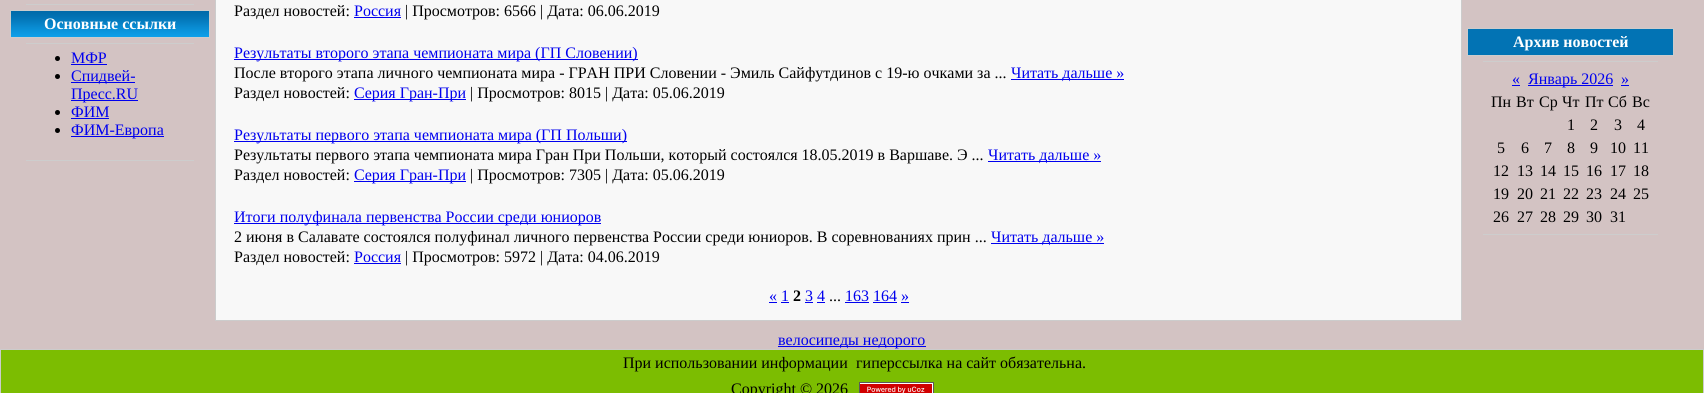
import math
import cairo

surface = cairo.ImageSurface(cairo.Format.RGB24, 1704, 393)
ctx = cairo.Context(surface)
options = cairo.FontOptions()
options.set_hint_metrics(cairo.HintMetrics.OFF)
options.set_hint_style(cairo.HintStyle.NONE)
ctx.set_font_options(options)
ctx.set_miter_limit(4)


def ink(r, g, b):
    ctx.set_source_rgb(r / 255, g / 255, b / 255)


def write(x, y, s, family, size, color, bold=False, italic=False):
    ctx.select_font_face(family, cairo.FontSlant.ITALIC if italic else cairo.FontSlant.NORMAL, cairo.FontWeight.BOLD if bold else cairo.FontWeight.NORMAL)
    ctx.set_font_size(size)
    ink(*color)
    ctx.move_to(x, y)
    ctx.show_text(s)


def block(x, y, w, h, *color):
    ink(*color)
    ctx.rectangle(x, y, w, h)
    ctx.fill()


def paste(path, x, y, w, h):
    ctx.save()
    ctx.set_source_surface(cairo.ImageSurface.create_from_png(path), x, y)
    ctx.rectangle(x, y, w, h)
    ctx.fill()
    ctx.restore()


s1 = dict(family="Liberation Serif", size=16, color=(255, 255, 255), bold=True)
s2 = dict(family="Liberation Serif", size=16, color=(0, 0, 238))
s3 = dict(family="Liberation Serif", size=16, color=(0, 0, 0))
s4 = dict(family="Liberation Serif", size=16, color=(0, 0, 0), bold=True)

ink(211, 195, 195)
ctx.paint()
block(26, 4, 168, 1, 205, 205, 205)
paste("pic1.png", 11, 11, 198, 26)
ctx.rectangle(10.5, 10.5, 199, 27)
ink(204, 204, 204)
ctx.set_line_width(1)
ctx.stroke()
write(44, 29, "Основные ссылки", **s1)
block(26, 43, 168, 1, 205, 205, 205)
block(26, 160, 168, 1, 205, 205, 205)
ink(0, 0, 0)
ctx.new_path()
ctx.arc(57.5, 58.5, 2.5, 0, 2 * math.pi)
ctx.fill()
write(71, 63, "МФР", **s2)
block(71, 64, 36, 1, 0, 0, 238)
ink(0, 0, 0)
ctx.new_path()
ctx.arc(57.5, 76.5, 2.5, 0, 2 * math.pi)
ctx.fill()
block(71, 82, 64, 1, 0, 0, 238)
write(71, 81, "Спидвей-", **s2)
block(71, 100, 67, 1, 0, 0, 238)
write(71, 99, "Пресс.RU", **s2)
ink(0, 0, 0)
ctx.new_path()
ctx.arc(57.5, 112.5, 2.5, 0, 2 * math.pi)
ctx.fill()
write(71, 117, "ФИМ", **s2)
block(71, 118, 38, 1, 0, 0, 238)
ink(0, 0, 0)
ctx.new_path()
ctx.arc(57.5, 130.5, 2.5, 0, 2 * math.pi)
ctx.fill()
block(71, 136, 93, 1, 0, 0, 238)
write(71, 135, "ФИМ-Европа", **s2)
ctx.rectangle(215.5, -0.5, 1246, 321)
ink(204, 204, 204)
ctx.stroke()
block(216, 0, 1245, 320, 248, 248, 248)
write(234, 16, "Раздел новостей:", **s3)
write(354, 16, "Россия", **s2)
block(354, 17, 47, 1, 0, 0, 238)
write(405, 16, "| Просмотров: 6566 | Дата: 06.06.2019", **s3)
block(234, 59, 404, 1, 0, 0, 238)
write(234, 58, "Результаты второго этапа чемпионата мира (ГП Словении)", **s2)
write(234, 78, "После второго этапа личного чемпионата мира - ГРАН ПРИ Словении - Эмиль Сайфутдинов с 19-ю очками за ...", **s3)
block(1011, 79, 113, 1, 0, 0, 238)
write(1011, 78, "Читать дальше »", **s2)
write(234, 98, "Раздел новостей:", **s3)
block(354, 99, 112, 1, 0, 0, 238)
write(354, 98, "Серия Гран-При", **s2)
write(470, 98, "| Просмотров: 8015 | Дата: 05.06.2019", **s3)
block(234, 141, 393, 1, 0, 0, 238)
write(234, 140, "Результаты первого этапа чемпионата мира (ГП Польши)", **s2)
write(234, 160, "Результаты первого этапа чемпионата мира Гран При Польши, который состоялся 18.05.2019 в Варшаве. Э ...", **s3)
block(988, 161, 113, 1, 0, 0, 238)
write(988, 160, "Читать дальше »", **s2)
write(234, 180, "Раздел новостей:", **s3)
block(354, 181, 112, 1, 0, 0, 238)
write(354, 180, "Серия Гран-При", **s2)
write(470, 180, "| Просмотров: 7305 | Дата: 05.06.2019", **s3)
block(234, 223, 367, 1, 0, 0, 238)
write(234, 222, "Итоги полуфинала первенства России среди юниоров", **s2)
write(234, 242, "2 июня в Салавате состоялся полуфинал личного первенства России среди юниоров. В соревнованиях прин ...", **s3)
block(991, 243, 113, 1, 0, 0, 238)
write(991, 242, "Читать дальше »", **s2)
write(234, 262, "Раздел новостей:", **s3)
write(354, 262, "Россия", **s2)
block(354, 263, 47, 1, 0, 0, 238)
write(405, 262, "| Просмотров: 5972 | Дата: 04.06.2019", **s3)
write(769, 301, "« 1", **s2)
block(769, 302, 8, 1, 0, 0, 238)
write(793, 301, "2", **s4)
write(805, 301, "3 4", **s2)
block(805, 302, 8, 1, 0, 0, 238)
write(829, 301, "...", **s3)
write(845, 301, "163 164 »", **s2)
block(845, 302, 24, 1, 0, 0, 238)
block(781, 302, 8, 1, 0, 0, 238)
block(817, 302, 8, 1, 0, 0, 238)
block(873, 302, 24, 1, 0, 0, 238)
block(901, 302, 8, 1, 0, 0, 238)
ink(2, 115, 180)
ctx.rectangle(1467.5, 28.5, 206, 27)
ctx.fill_preserve()
ink(204, 204, 204)
ctx.stroke()
write(1513, 47, "Архив новостей", **s1)
block(1483, 61, 175, 1, 205, 205, 205)
block(1483, 234, 175, 1, 205, 205, 205)
write(1512, 84, "«", **s2)
block(1512, 85, 8, 1, 0, 0, 238)
block(1528, 85, 85, 1, 0, 0, 238)
write(1528, 84, "Январь 2026", **s2)
write(1621, 84, "»", **s2)
block(1621, 85, 8, 1, 0, 0, 238)
write(1491, 107, "Пн", **s3)
write(1516, 107, "Вт", **s3)
write(1539, 107, "Ср", **s3)
write(1562, 107, "Чт", **s3)
write(1585, 107, "Пт", **s3)
write(1608, 107, "Сб", **s3)
write(1632, 107, "Вс", **s3)
write(1567, 130, "1", **s3)
write(1590, 130, "2", **s3)
write(1614, 130, "3", **s3)
write(1637, 130, "4", **s3)
write(1497, 153, "5", **s3)
write(1521, 153, "6", **s3)
write(1544, 153, "7", **s3)
write(1567, 153, "8", **s3)
write(1590, 153, "9", **s3)
write(1610, 153, "10", **s3)
write(1633, 153, "11", **s3)
write(1493, 176, "12", **s3)
write(1517, 176, "13", **s3)
write(1540, 176, "14", **s3)
write(1563, 176, "15", **s3)
write(1586, 176, "16", **s3)
write(1610, 176, "17", **s3)
write(1633, 176, "18", **s3)
write(1493, 199, "19", **s3)
write(1517, 199, "20", **s3)
write(1540, 199, "21", **s3)
write(1563, 199, "22", **s3)
write(1586, 199, "23", **s3)
write(1610, 199, "24", **s3)
write(1633, 199, "25", **s3)
write(1493, 222, "26", **s3)
write(1517, 222, "27", **s3)
write(1540, 222, "28", **s3)
write(1563, 222, "29", **s3)
write(1586, 222, "30", **s3)
write(1610, 222, "31", **s3)
block(778, 346, 148, 1, 0, 0, 238)
write(778, 345, "велосипеды недорого", **s2)
ink(124, 189, 1)
ctx.rectangle(0.5, 349.5, 1703, 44)
ctx.fill_preserve()
ink(204, 204, 204)
ctx.stroke()
write(623, 368, "При использовании информации", **s3)
write(856, 368, "гиперссылка на сайт обязательна.", **s3)
write(731, 394, "Copyright © 2026", **s3)
paste("pic2.png", 859, 382, 75, 11)
surface.write_to_png("screenshot.png")
